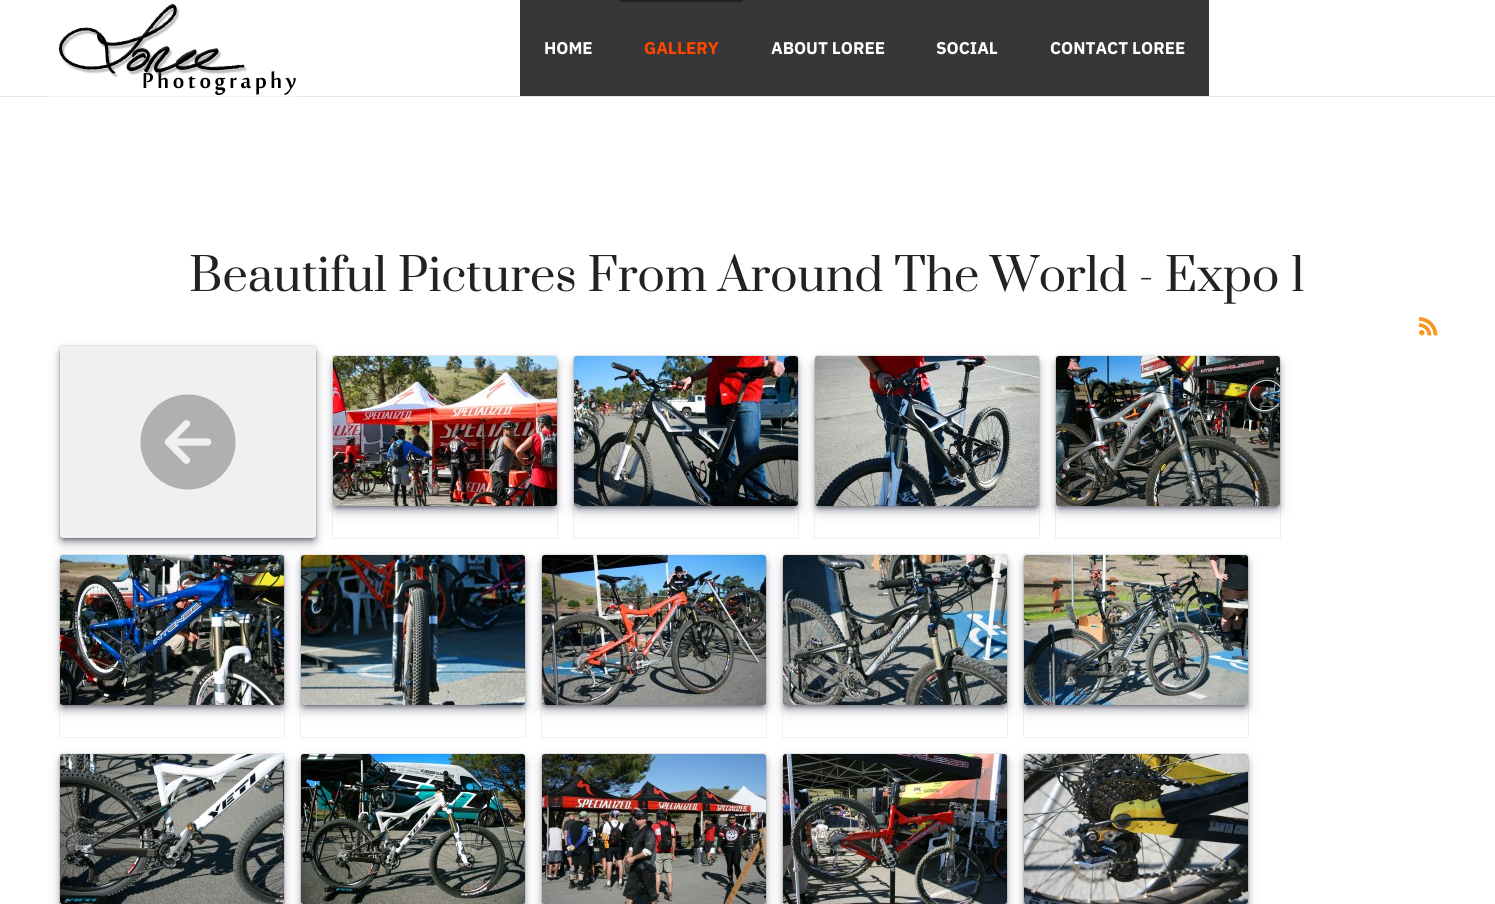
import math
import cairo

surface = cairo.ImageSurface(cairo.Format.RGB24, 1495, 904)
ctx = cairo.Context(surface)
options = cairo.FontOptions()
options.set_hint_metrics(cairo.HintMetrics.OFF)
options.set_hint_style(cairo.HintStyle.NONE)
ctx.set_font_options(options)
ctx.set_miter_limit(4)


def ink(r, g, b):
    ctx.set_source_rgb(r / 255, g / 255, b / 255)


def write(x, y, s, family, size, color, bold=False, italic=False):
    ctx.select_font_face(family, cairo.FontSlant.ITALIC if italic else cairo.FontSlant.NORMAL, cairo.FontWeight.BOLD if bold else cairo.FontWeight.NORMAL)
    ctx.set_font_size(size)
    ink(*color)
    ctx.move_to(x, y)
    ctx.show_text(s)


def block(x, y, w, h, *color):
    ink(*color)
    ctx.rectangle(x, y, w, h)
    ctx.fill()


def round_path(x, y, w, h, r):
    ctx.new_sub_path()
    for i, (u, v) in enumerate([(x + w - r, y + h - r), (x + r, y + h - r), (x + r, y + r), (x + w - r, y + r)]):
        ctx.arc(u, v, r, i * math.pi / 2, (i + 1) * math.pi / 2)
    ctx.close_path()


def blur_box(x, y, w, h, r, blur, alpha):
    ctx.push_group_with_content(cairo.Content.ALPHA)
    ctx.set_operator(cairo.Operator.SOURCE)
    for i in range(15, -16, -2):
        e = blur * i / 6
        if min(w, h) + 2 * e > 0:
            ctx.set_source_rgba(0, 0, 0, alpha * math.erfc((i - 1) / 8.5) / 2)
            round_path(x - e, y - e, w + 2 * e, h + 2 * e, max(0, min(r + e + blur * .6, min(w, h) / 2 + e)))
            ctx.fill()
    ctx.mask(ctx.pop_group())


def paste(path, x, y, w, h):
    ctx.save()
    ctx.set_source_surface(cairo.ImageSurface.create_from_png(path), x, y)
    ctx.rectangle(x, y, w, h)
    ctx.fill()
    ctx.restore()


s1 = dict(family="IBM Plex Sans", size=17, color=(255, 255, 255), bold=True)
s2 = dict(family="IBM Plex Sans", size=17, color=(255, 69, 0), bold=True)
s3 = dict(family="Prata", size=45, color=(34, 34, 34))

ink(255, 255, 255)
ctx.paint()
block(0, 96, 1495, 1, 232, 232, 232)
paste("pic1.png", 48, 4, 250, 93)
block(520, 0, 689, 96, 55, 55, 55)
write(544, 54, "HOME", **s1)
block(620, 0, 123, 2, 34, 34, 34)
write(644, 54, "GALLERY", **s2)
write(771, 54, "ABOUT LOREE", **s1)
write(936, 54, "SOCIAL", **s1)
write(1050, 54, "CONTACT LOREE", **s1)
write(189, 291, "Beautiful Pictures From Around The World - Expo 1", **s3)
paste("pic2.png", 1419, 317, 19, 19)
ctx.rectangle(59.5, 345.5, 257, 193)
ink(240, 240, 240)
ctx.set_line_width(1)
ctx.stroke()
ink(50, 50, 93)
blur_box(62, 354, 252, 188, 1, 6, 0.4)
ink(0, 0, 0)
blur_box(63, 352, 250, 186, 0, 3.5, 0.7)
ink(240, 240, 240)
round_path(60, 346, 256, 192, 3)
ctx.fill()
paste("pic3.png", 140, 394, 96, 96)
ctx.rectangle(332.5, 355.5, 225, 183)
ctx.stroke()
ink(50, 50, 93)
blur_box(335, 364, 220, 146, 1, 6, 0.4)
ink(0, 0, 0)
blur_box(336, 362, 218, 144, 0, 3.5, 0.7)
paste("pic4.png", 333, 356, 224, 150)
ctx.rectangle(573.5, 355.5, 225, 183)
ink(240, 240, 240)
ctx.stroke()
ink(50, 50, 93)
blur_box(576, 364, 220, 146, 1, 6, 0.4)
ink(0, 0, 0)
blur_box(577, 362, 218, 144, 0, 3.5, 0.7)
paste("pic5.png", 574, 356, 224, 150)
ctx.rectangle(814.5, 355.5, 225, 183)
ink(240, 240, 240)
ctx.stroke()
ink(50, 50, 93)
blur_box(817, 364, 220, 146, 1, 6, 0.4)
ink(0, 0, 0)
blur_box(818, 362, 218, 144, 0, 3.5, 0.7)
paste("pic6.png", 815, 356, 224, 150)
ctx.rectangle(1055.5, 355.5, 225, 183)
ink(240, 240, 240)
ctx.stroke()
ink(50, 50, 93)
blur_box(1058, 364, 220, 146, 1, 6, 0.4)
ink(0, 0, 0)
blur_box(1059, 362, 218, 144, 0, 3.5, 0.7)
paste("pic7.png", 1056, 356, 224, 150)
ctx.rectangle(59.5, 554.5, 225, 183)
ink(240, 240, 240)
ctx.stroke()
ink(50, 50, 93)
blur_box(62, 563, 220, 146, 1, 6, 0.4)
ink(0, 0, 0)
blur_box(63, 561, 218, 144, 0, 3.5, 0.7)
paste("pic8.png", 60, 555, 224, 150)
ctx.rectangle(300.5, 554.5, 225, 183)
ink(240, 240, 240)
ctx.stroke()
ink(50, 50, 93)
blur_box(303, 563, 220, 146, 1, 6, 0.4)
ink(0, 0, 0)
blur_box(304, 561, 218, 144, 0, 3.5, 0.7)
paste("pic9.png", 301, 555, 224, 150)
ctx.rectangle(541.5, 554.5, 225, 183)
ink(240, 240, 240)
ctx.stroke()
ink(50, 50, 93)
blur_box(544, 563, 220, 146, 1, 6, 0.4)
ink(0, 0, 0)
blur_box(545, 561, 218, 144, 0, 3.5, 0.7)
paste("pic10.png", 542, 555, 224, 150)
ctx.rectangle(782.5, 554.5, 225, 183)
ink(240, 240, 240)
ctx.stroke()
ink(50, 50, 93)
blur_box(785, 563, 220, 146, 1, 6, 0.4)
ink(0, 0, 0)
blur_box(786, 561, 218, 144, 0, 3.5, 0.7)
paste("pic11.png", 783, 555, 224, 150)
ctx.rectangle(1023.5, 554.5, 225, 183)
ink(240, 240, 240)
ctx.stroke()
ink(50, 50, 93)
blur_box(1026, 563, 220, 146, 1, 6, 0.4)
ink(0, 0, 0)
blur_box(1027, 561, 218, 144, 0, 3.5, 0.7)
paste("pic12.png", 1024, 555, 224, 150)
ctx.rectangle(59.5, 753.5, 225, 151)
ink(240, 240, 240)
ctx.stroke()
ink(50, 50, 93)
blur_box(62, 762, 220, 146, 1, 6, 0.4)
ink(0, 0, 0)
blur_box(63, 760, 218, 144, 0, 3.5, 0.7)
paste("pic13.png", 60, 754, 224, 150)
ctx.rectangle(300.5, 753.5, 225, 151)
ink(240, 240, 240)
ctx.stroke()
ink(50, 50, 93)
blur_box(303, 762, 220, 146, 1, 6, 0.4)
ink(0, 0, 0)
blur_box(304, 760, 218, 144, 0, 3.5, 0.7)
paste("pic14.png", 301, 754, 224, 150)
ctx.rectangle(541.5, 753.5, 225, 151)
ink(240, 240, 240)
ctx.stroke()
ink(50, 50, 93)
blur_box(544, 762, 220, 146, 1, 6, 0.4)
ink(0, 0, 0)
blur_box(545, 760, 218, 144, 0, 3.5, 0.7)
paste("pic15.png", 542, 754, 224, 150)
ctx.rectangle(782.5, 753.5, 225, 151)
ink(240, 240, 240)
ctx.stroke()
ink(50, 50, 93)
blur_box(785, 762, 220, 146, 1, 6, 0.4)
ink(0, 0, 0)
blur_box(786, 760, 218, 144, 0, 3.5, 0.7)
paste("pic16.png", 783, 754, 224, 150)
ctx.rectangle(1023.5, 753.5, 225, 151)
ink(240, 240, 240)
ctx.stroke()
ink(50, 50, 93)
blur_box(1026, 762, 220, 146, 1, 6, 0.4)
ink(0, 0, 0)
blur_box(1027, 760, 218, 144, 0, 3.5, 0.7)
paste("pic17.png", 1024, 754, 224, 150)
surface.write_to_png("screenshot.png")
